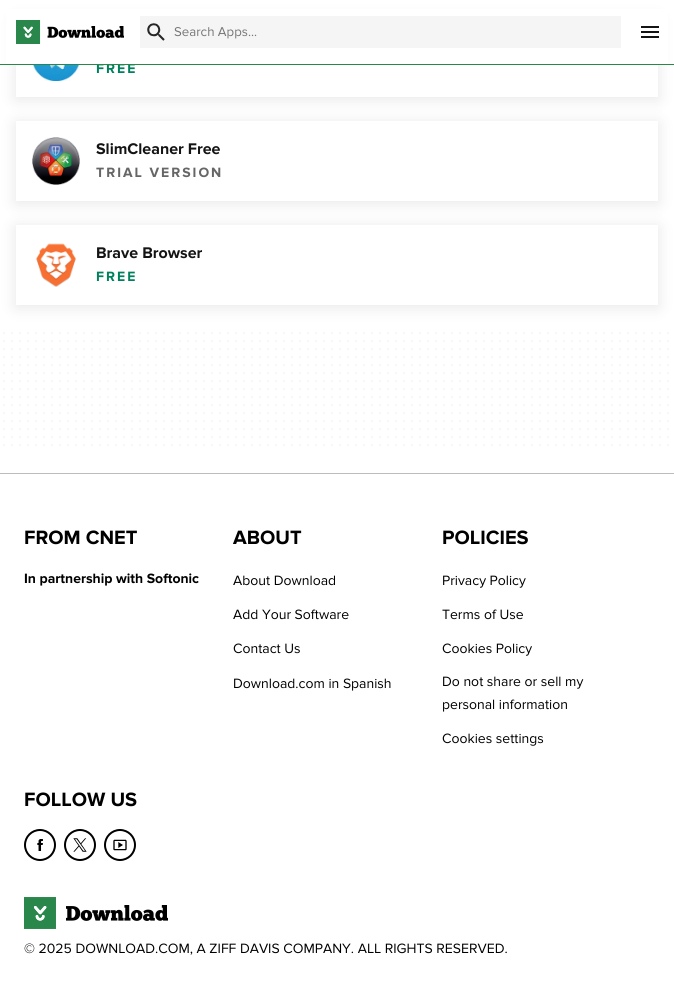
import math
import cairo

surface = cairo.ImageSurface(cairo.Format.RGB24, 674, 1008)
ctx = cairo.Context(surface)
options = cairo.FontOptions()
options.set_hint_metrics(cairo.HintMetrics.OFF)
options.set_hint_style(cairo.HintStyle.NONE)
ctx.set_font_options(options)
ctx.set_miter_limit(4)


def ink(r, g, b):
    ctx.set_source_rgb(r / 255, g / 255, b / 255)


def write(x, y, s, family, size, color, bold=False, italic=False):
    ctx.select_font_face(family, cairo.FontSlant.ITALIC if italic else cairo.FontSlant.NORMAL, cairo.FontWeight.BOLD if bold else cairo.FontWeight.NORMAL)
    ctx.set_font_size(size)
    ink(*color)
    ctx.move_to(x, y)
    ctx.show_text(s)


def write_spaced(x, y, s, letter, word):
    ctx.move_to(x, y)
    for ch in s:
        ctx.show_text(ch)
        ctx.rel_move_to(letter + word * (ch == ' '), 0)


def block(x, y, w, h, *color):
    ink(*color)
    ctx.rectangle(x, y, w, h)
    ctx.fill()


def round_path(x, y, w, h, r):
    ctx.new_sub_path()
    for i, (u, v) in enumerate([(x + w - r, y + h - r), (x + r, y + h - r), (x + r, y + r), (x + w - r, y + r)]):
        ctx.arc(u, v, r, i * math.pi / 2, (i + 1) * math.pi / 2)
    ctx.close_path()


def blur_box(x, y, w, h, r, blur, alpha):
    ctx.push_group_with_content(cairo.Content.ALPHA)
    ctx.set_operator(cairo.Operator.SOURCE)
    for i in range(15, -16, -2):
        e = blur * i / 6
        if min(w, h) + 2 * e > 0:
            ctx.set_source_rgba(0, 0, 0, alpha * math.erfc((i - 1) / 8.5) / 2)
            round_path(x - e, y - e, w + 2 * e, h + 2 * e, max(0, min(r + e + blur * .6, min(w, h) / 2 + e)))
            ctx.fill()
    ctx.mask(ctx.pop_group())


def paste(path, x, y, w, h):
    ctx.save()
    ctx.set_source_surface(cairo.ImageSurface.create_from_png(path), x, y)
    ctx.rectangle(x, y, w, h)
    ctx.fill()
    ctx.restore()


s1 = dict(family="Proxima Nova", size=13.25, color=(117, 117, 117))
s2 = dict(family="Proxima Nova", size=16, color=(20, 20, 21), bold=True)
s3 = dict(family="Proxima Nova", size=20, color=(0, 0, 0), bold=True)
s4 = dict(family="Proxima Nova", size=14, color=(0, 0, 0), bold=True)
s5 = dict(family="Proxima Nova", size=14, color=(0, 0, 0))

ink(255, 255, 255)
ctx.paint()
ctx.save()
ctx.set_fill_rule(cairo.FillRule.EVEN_ODD)
ctx.new_path()
ctx.move_to(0, 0)
ctx.line_to(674, 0)
ctx.line_to(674, 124)
ctx.line_to(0, 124)
ctx.close_path()
ctx.move_to(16, 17)
ctx.line_to(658, 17)
ctx.line_to(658, 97)
ctx.line_to(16, 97)
ctx.close_path()
ctx.clip()
ink(0, 0, 0)
blur_box(16, 19, 642, 80, 0, 8, 0.1)
ctx.restore()
ctx.select_font_face("Proxima Nova", cairo.FontSlant.NORMAL, cairo.FontWeight.BOLD)
ctx.set_font_size(14)
ink(0, 128, 94)
write_spaced(96, 73, "FREE", 2, 0)
block(6, 9, 662, 55, 255, 255, 255)
block(0, 64, 674, 1, 42, 135, 75)
paste("pic1.png", 16, 20, 108, 24)
block(140, 16, 481, 32, 245, 245, 245)
paste("pic2.png", 147, 23, 18, 18)
write(174, 36, "Search Apps...", **s1)
paste("pic3.png", 641, 26, 18, 12)
paste("pic4.png", 32, 65, 48, 16)
ctx.save()
ctx.set_fill_rule(cairo.FillRule.EVEN_ODD)
ctx.new_path()
ctx.move_to(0, 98)
ctx.line_to(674, 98)
ctx.line_to(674, 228)
ctx.line_to(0, 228)
ctx.close_path()
ctx.move_to(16, 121)
ctx.line_to(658, 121)
ctx.line_to(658, 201)
ctx.line_to(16, 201)
ctx.close_path()
ctx.clip()
ink(0, 0, 0)
blur_box(16, 123, 642, 80, 0, 8, 0.1)
ctx.restore()
paste("pic5.png", 32, 137, 48, 48)
write(96, 154, "SlimCleaner Free", **s2)
ctx.set_font_size(14)
ink(102, 102, 102)
write_spaced(96, 177, "TRIAL VERSION", 2, 0)
ctx.save()
ctx.set_fill_rule(cairo.FillRule.EVEN_ODD)
ctx.new_path()
ctx.move_to(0, 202)
ctx.line_to(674, 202)
ctx.line_to(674, 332)
ctx.line_to(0, 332)
ctx.close_path()
ctx.move_to(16, 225)
ctx.line_to(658, 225)
ctx.line_to(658, 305)
ctx.line_to(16, 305)
ctx.close_path()
ctx.clip()
ink(0, 0, 0)
blur_box(16, 227, 642, 80, 0, 8, 0.1)
ctx.restore()
paste("pic6.png", 36, 243, 40, 44)
write(96, 258, "Brave Browser", **s2)
ctx.set_font_size(14)
ink(0, 128, 94)
write_spaced(96, 281, "FREE", 2, 0)
ctx.new_path()
ctx.move_to(4, 333)
ctx.line_to(668.2, 333)
ink(245, 245, 245)
ctx.set_line_cap(cairo.LineCap.ROUND)
ctx.set_dash([0, 8])
ctx.stroke()
ctx.new_path()
ctx.move_to(4, 341)
ctx.line_to(668.2, 341)
ctx.stroke()
ctx.new_path()
ctx.move_to(4, 349)
ctx.line_to(668.2, 349)
ctx.stroke()
ctx.new_path()
ctx.move_to(4, 357)
ctx.line_to(668.2, 357)
ctx.stroke()
ctx.new_path()
ctx.move_to(4, 365)
ctx.line_to(668.2, 365)
ctx.stroke()
ctx.new_path()
ctx.move_to(4, 373)
ctx.line_to(668.2, 373)
ctx.stroke()
ctx.new_path()
ctx.move_to(4, 381)
ctx.line_to(668.2, 381)
ctx.stroke()
ctx.new_path()
ctx.move_to(4, 389)
ctx.line_to(668.2, 389)
ctx.stroke()
ctx.new_path()
ctx.move_to(4, 397)
ctx.line_to(668.2, 397)
ctx.stroke()
ctx.new_path()
ctx.move_to(4, 405)
ctx.line_to(668.2, 405)
ctx.stroke()
ctx.new_path()
ctx.move_to(4, 413)
ctx.line_to(668.2, 413)
ctx.stroke()
ctx.new_path()
ctx.move_to(4, 421)
ctx.line_to(668.2, 421)
ctx.stroke()
ctx.new_path()
ctx.move_to(4, 429)
ctx.line_to(668.2, 429)
ctx.stroke()
ctx.new_path()
ctx.move_to(4, 437)
ctx.line_to(668.2, 437)
ctx.stroke()
ctx.new_path()
ctx.move_to(4, 445)
ctx.line_to(668.2, 445)
ctx.stroke()
block(0, 473, 674, 1, 189, 189, 189)
write(24, 544, "FROM CNET", **s3)
write(24, 583, "In partnership with Softonic", **s4)
write(233, 544, "ABOUT", **s3)
write(233, 585, "About Download", **s5)
write(233, 619, "Add Your Software", **s5)
write(233, 653, "Contact Us", **s5)
write(233, 688, "Download.com in Spanish", **s5)
write(442, 544, "POLICIES", **s3)
write(442, 585, "Privacy Policy", **s5)
write(442, 619, "Terms of Use", **s5)
write(442, 653, "Cookies Policy", **s5)
write(442, 686, "Do not share or sell my", **s5)
write(442, 709, "personal information", **s5)
write(442, 743, "Cookies settings", **s5)
write(24, 806, "FOLLOW US", **s3)
ctx.new_path()
ctx.arc(40, 845, 15, 0, 2 * math.pi)
ctx.set_line_cap(cairo.LineCap.BUTT)
ctx.set_dash([])
ctx.stroke()
paste("pic7.png", 37, 839, 6, 12)
ctx.arc(80, 845, 15, 0, 2 * math.pi)
ctx.stroke()
paste("pic8.png", 73, 838, 14, 14)
ctx.arc(120, 845, 15, 0, 2 * math.pi)
ctx.stroke()
paste("pic9.png", 113, 839, 14, 12)
paste("pic10.png", 24, 897, 144, 32)
write(24, 953, "© 2025 DOWNLOAD.COM, A ZIFF DAVIS COMPANY. ALL RIGHTS RESERVED.", **s5)
surface.write_to_png("screenshot.png")
